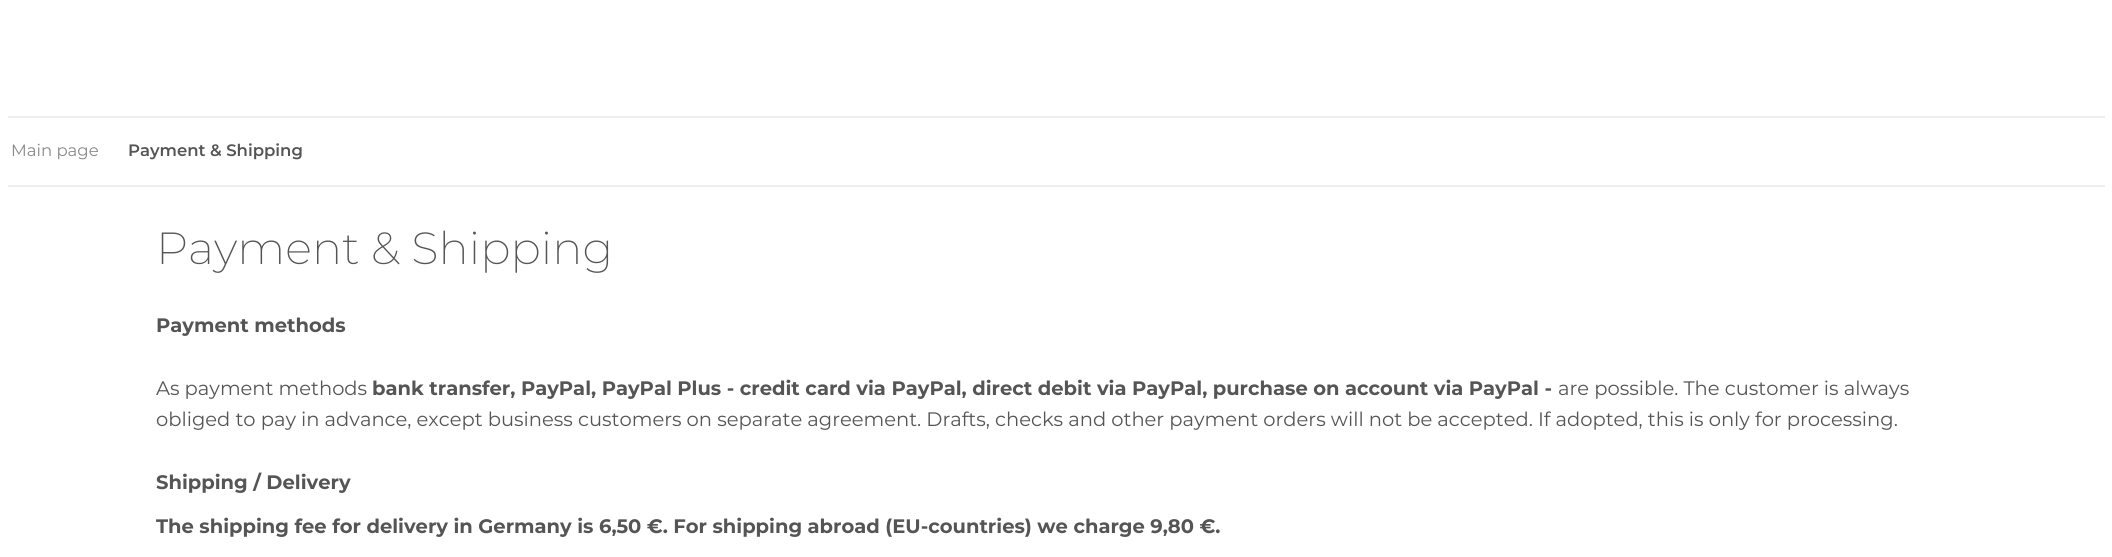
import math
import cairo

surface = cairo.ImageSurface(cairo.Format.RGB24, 2112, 557)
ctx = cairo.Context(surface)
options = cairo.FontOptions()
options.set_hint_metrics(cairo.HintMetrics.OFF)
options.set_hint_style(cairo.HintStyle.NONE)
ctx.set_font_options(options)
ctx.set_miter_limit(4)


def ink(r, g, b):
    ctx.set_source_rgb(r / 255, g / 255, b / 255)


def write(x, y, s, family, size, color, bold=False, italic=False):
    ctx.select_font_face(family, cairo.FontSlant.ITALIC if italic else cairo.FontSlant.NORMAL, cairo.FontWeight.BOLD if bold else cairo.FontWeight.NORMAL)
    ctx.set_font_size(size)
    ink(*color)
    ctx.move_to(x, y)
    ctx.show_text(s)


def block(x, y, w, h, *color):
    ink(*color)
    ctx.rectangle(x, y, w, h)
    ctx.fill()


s1 = dict(family="Montserrat", size=16.5, color=(136, 136, 136))
s2 = dict(family="Montserrat SemiBold", size=16.5, color=(85, 85, 85))
s3 = dict(family="Montserrat ExtraLight", size=45, color=(85, 85, 85))
s4 = dict(family="Montserrat", size=19.5, color=(85, 85, 85), bold=True)
s5 = dict(family="Montserrat", size=19.5, color=(85, 85, 85))

ink(255, 255, 255)
ctx.paint()
block(8, 116, 2097, 2, 238, 238, 238)
block(8, 185, 2097, 2, 238, 238, 238)
write(11, 156, "Main page", **s1)
write(128, 156, "Payment & Shipping", **s2)
write(156, 264, "Payment & Shipping", **s3)
write(156, 332, "Payment methods", **s4)
write(156, 395, "As payment methods", **s5)
write(372, 395, "bank transfer, PayPal, PayPal Plus - credit card via PayPal, direct debit via PayPal, purchase on account via PayPal -", **s4)
write(1558, 395, "are possible. The customer is always", **s5)
write(156, 426, "obliged to pay in advance, except business customers on separate agreement. Drafts, checks and other payment orders will not be accepted. If adopted, this is only for processing.", **s5)
write(156, 489, "Shipping / Delivery", **s4)
write(156, 533, "The shipping fee for delivery in Germany is 6,50 €. For shipping abroad (EU-countries) we charge 9,80 €.", **s4)
surface.write_to_png("screenshot.png")
